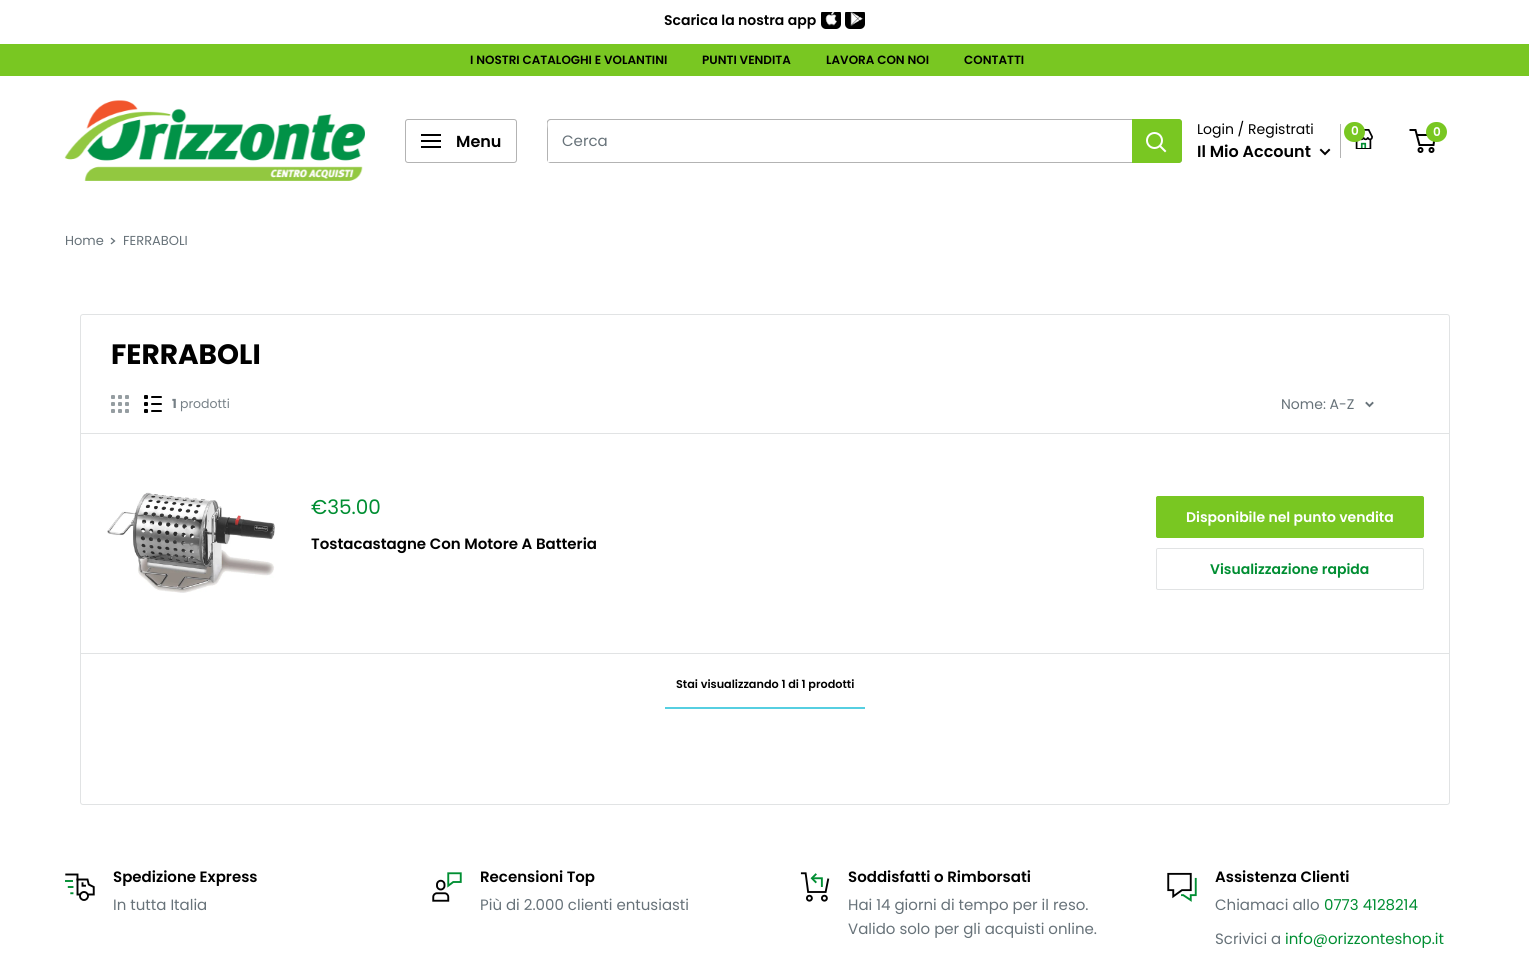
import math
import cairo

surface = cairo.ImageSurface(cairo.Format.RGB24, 1529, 975)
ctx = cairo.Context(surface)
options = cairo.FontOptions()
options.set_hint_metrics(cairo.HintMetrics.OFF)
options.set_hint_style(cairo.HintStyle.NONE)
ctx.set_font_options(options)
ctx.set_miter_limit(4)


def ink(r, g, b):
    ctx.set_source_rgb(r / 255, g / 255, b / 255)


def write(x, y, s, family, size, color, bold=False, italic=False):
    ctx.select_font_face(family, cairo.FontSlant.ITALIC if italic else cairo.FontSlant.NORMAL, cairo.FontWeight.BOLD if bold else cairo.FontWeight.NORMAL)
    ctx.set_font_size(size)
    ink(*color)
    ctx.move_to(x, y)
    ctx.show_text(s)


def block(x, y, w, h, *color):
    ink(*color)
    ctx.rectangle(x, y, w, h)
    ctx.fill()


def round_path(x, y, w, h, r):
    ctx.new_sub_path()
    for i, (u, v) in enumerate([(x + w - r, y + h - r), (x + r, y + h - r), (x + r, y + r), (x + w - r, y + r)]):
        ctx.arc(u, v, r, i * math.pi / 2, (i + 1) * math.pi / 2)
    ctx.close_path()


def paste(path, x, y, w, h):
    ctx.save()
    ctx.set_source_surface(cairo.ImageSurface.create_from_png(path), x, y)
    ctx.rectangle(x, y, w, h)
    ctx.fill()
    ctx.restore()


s1 = dict(family="Poppins SemiBold", size=14, color=(0, 0, 0))
s2 = dict(family="Poppins SemiBold", size=12, color=(0, 0, 0))
s3 = dict(family="Poppins SemiBold", size=16, color=(0, 0, 0))
s4 = dict(family="Poppins", size=15, color=(103, 114, 121))
s5 = dict(family="Poppins", size=14, color=(0, 0, 0))
s6 = dict(family="Poppins SemiBold", size=12, color=(255, 255, 255))
s7 = dict(family="Poppins", size=13, color=(103, 114, 121))
s8 = dict(family="Poppins", size=28, color=(0, 0, 0), bold=True)
s9 = dict(family="Poppins", size=12.5, color=(118, 128, 134), bold=True)
s10 = dict(family="Poppins", size=12.5, color=(118, 128, 134))
s11 = dict(family="Poppins", size=14, color=(103, 114, 121))
s12 = dict(family="Poppins", size=20, color=(0, 142, 50))
s13 = dict(family="Poppins SemiBold", size=15, color=(0, 0, 0))
s14 = dict(family="Poppins SemiBold", size=14, color=(255, 255, 255))
s15 = dict(family="Poppins SemiBold", size=14, color=(0, 142, 50))
s16 = dict(family="Poppins SemiBold", size=11.25, color=(0, 0, 0))
s17 = dict(family="Poppins", size=15, color=(0, 142, 50))

ink(255, 255, 255)
ctx.paint()
write(664, 25, "Scarica la nostra app", **s1)
paste("pic1.png", 821, 12, 44, 17)
block(0, 44, 1529, 32, 121, 199, 34)
write(470, 64, "I NOSTRI CATALOGHI E VOLANTINI", **s2)
write(702, 64, "PUNTI VENDITA", **s2)
write(826, 64, "LAVORA CON NOI", **s2)
write(964, 64, "CONTATTI", **s2)
paste("pic2.png", 64, 100, 301, 81)
round_path(405.5, 119.5, 111, 43, 2.5)
ink(179, 179, 179)
ctx.set_line_width(1)
ctx.stroke()
paste("pic3.png", 421, 134, 20, 14)
write(456, 147, "Menu", **s3)
ink(179, 179, 179)
ctx.new_path()
ctx.move_to(548, 162)
ctx.line_to(550, 163)
ctx.line_to(1179, 163)
ctx.curve_to(1180, 163, 1181, 162, 1182, 161)
ctx.line_to(1182, 122)
ctx.line_to(1181, 120)
ctx.line_to(1181, 153)
ctx.curve_to(1181, 155, 1183, 162, 1178, 162)
ctx.close_path()
ctx.fill()
ctx.new_path()
ctx.move_to(551, 120)
ctx.line_to(1181, 120)
ctx.line_to(1179, 119)
ctx.line_to(550, 119)
ctx.curve_to(549, 119, 548, 120, 547, 121)
ctx.line_to(547, 160)
ctx.line_to(548, 162)
ctx.line_to(548, 129)
ctx.curve_to(548, 127, 546, 120, 551, 120)
ctx.close_path()
ctx.fill()
write(562, 146, "Cerca", **s4)
ink(121, 199, 34)
ctx.new_path()
ctx.move_to(1132, 119)
ctx.line_to(1179, 119)
ctx.curve_to(1180.5, 119, 1182, 120.5, 1182, 122)
ctx.line_to(1182, 160)
ctx.curve_to(1182, 161.5, 1180.5, 163, 1179, 163)
ctx.line_to(1132, 163)
ctx.close_path()
ctx.fill()
ctx.new_path()
ctx.move_to(1165, 151)
ctx.line_to(1160, 146)
ink(255, 255, 255)
ctx.set_line_width(2)
ctx.set_line_cap(cairo.LineCap.SQUARE)
ctx.stroke()
ctx.arc(1154.5, 140.5, 7.5, 0, 2 * math.pi)
ctx.set_line_cap(cairo.LineCap.BUTT)
ctx.stroke()
write(1197, 134, "Login / Registrati", **s5)
block(1340, 124, 1, 34, 179, 179, 179)
write(1197, 157, "Il Mio Account", **s3)
ctx.new_path()
ctx.move_to(1329, 150)
ctx.line_to(1325, 154)
ctx.line_to(1321, 150)
ctx.set_line_cap(cairo.LineCap.SQUARE)
ctx.stroke()
paste("pic4.png", 1355, 129, 18, 20)
ink(121, 199, 34)
round_path(1344, 122, 21, 20, 10)
ctx.fill()
write(1351, 135, "0", **s6)
ctx.new_path()
ctx.move_to(1417, 135)
ctx.line_to(1435, 135)
ctx.line_to(1433.5, 145)
ctx.line_to(1419.5, 145)
ctx.line_to(1415.5, 130)
ctx.line_to(1409.5, 130)
ink(0, 0, 0)
ctx.set_line_cap(cairo.LineCap.BUTT)
ctx.stroke()
ink(121, 199, 34)
round_path(1426, 122, 21, 20, 10)
ctx.fill()
write(1433, 136, "0", **s6)
ctx.new_path()
ctx.arc(1420.5, 150, 2, 0, 2 * math.pi)
ink(0, 0, 0)
ctx.stroke()
ctx.arc(1431.5, 150, 2, 0, 2 * math.pi)
ctx.stroke()
write(65, 245, "Home", **s7)
ctx.new_path()
ctx.move_to(111.5, 238.5)
ctx.line_to(114.5, 241)
ctx.line_to(111.5, 243.5)
ctx.set_line_width(1.3)
ctx.set_line_cap(cairo.LineCap.SQUARE)
ctx.stroke()
write(123, 245, "FERRABOLI", **s7)
round_path(80.5, 314.5, 1369, 490, 2.5)
ink(225, 227, 228)
ctx.set_line_width(1)
ctx.set_line_cap(cairo.LineCap.BUTT)
ctx.stroke()
write(111, 364, "FERRABOLI", **s8)
block(81, 433, 1368, 1, 225, 227, 228)
paste("pic5.png", 111, 395, 18, 18)
paste("pic6.png", 144, 395, 18, 18)
write(172, 408, "1", **s9)
write(180, 408, "prodotti", **s10)
write(1281, 409, "Nome: A-Z", **s11)
ctx.new_path()
ctx.move_to(1372.5, 403)
ctx.line_to(1369.5, 406)
ctx.line_to(1366.5, 403)
ctx.set_line_width(1.9)
ctx.set_line_cap(cairo.LineCap.SQUARE)
ctx.stroke()
paste("pic7.png", 107, 492, 168, 101)
write(311, 514, "€35.00", **s12)
write(311, 549, "Tostacastagne Con Motore A Batteria", **s13)
ink(121, 199, 34)
round_path(1156.5, 496.5, 267, 41, 1.5)
ctx.fill_preserve()
ctx.set_line_width(1)
ctx.set_line_cap(cairo.LineCap.BUTT)
ctx.stroke()
write(1186, 522, "Disponibile nel punto vendita", **s14)
round_path(1156.5, 548.5, 267, 41, 1.5)
ink(225, 227, 228)
ctx.stroke()
write(1210, 574, "Visualizzazione rapida", **s15)
block(81, 653, 1368, 1, 225, 227, 228)
write(676, 688, "Stai visualizzando 1 di 1 prodotti", **s16)
block(665, 707, 200, 2, 86, 207, 225)
paste("pic8.png", 65, 873, 30, 28)
write(113, 882, "Spedizione Express", **s13)
write(113, 910, "In tutta Italia", **s4)
paste("pic9.png", 432, 872, 30, 30)
write(480, 882, "Recensioni Top", **s13)
write(480, 910, "Più di 2.000 clienti entusiasti", **s4)
paste("pic10.png", 800, 872, 30, 30)
write(848, 882, "Soddisfatti o Rimborsati", **s13)
write(848, 910, "Hai 14 giorni di tempo per il reso.", **s4)
write(848, 934, "Valido solo per gli acquisti online.", **s4)
paste("pic11.png", 1167, 872, 30, 30)
write(1215, 882, "Assistenza Clienti", **s13)
write(1215, 910, "Chiamaci allo", **s4)
write(1324, 910, "0773 4128214", **s17)
write(1215, 944, "Scrivici a", **s4)
write(1285, 944, "info@orizzonteshop.it", **s17)
surface.write_to_png("screenshot.png")
